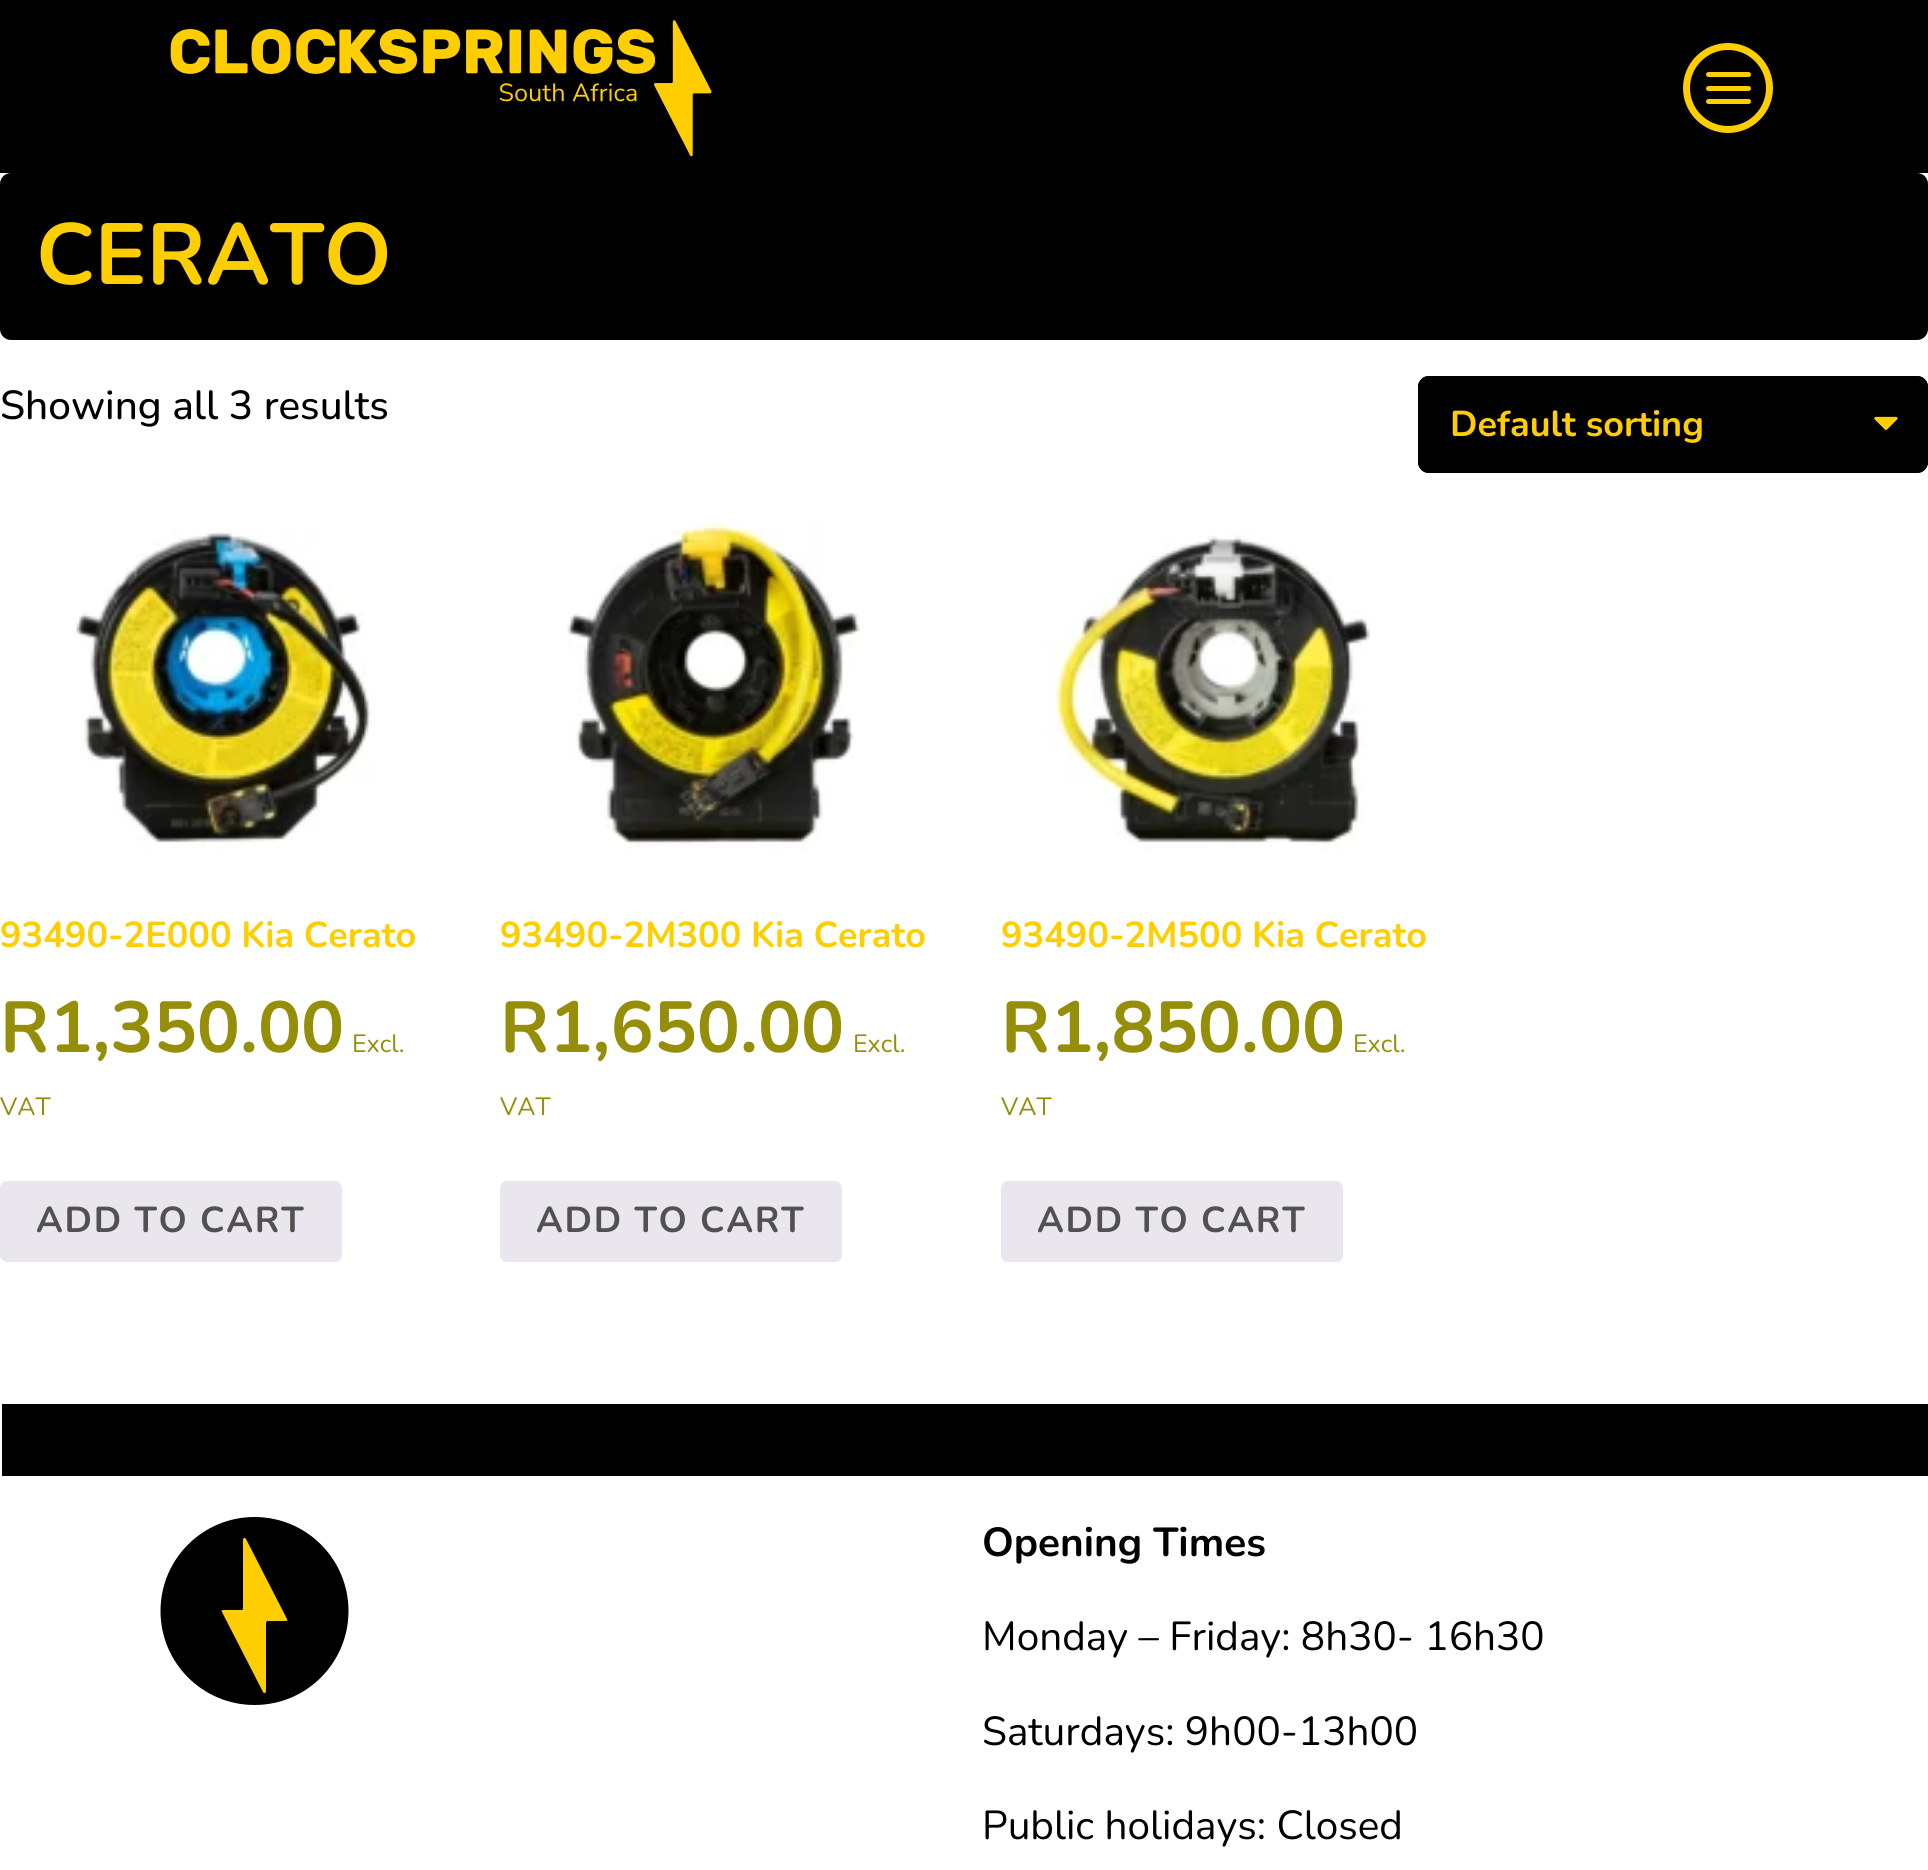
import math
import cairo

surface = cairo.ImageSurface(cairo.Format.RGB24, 1928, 1870)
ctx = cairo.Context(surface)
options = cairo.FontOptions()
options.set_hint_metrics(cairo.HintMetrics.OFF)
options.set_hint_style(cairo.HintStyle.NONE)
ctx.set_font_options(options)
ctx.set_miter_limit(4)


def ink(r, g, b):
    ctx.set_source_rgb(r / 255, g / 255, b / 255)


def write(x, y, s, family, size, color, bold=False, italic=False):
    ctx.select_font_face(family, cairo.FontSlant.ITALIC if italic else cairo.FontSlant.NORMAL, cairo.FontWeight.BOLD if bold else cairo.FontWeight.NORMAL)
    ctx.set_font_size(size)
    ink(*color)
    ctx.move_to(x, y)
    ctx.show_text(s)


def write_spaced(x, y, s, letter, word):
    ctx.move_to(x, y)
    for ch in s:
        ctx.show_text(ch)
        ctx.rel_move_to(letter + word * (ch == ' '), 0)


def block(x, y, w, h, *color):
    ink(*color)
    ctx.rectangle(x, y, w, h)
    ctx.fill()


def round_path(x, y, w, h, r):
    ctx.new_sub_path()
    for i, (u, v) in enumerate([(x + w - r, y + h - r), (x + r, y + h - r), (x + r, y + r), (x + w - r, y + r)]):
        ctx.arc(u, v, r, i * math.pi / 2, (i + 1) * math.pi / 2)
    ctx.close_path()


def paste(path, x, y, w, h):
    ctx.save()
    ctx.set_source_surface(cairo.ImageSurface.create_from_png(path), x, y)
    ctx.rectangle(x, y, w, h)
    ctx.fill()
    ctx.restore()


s1 = dict(family="Nunito", size=86.5, color=(255, 206, 0), bold=True)
s2 = dict(family="Nunito Medium", size=40.5, color=(0, 0, 0))
s3 = dict(family="Nunito", size=36, color=(255, 206, 0), bold=True)
s4 = dict(family="Nunito", size=72, color=(149, 142, 9), bold=True)
s5 = dict(family="Nunito", size=25, color=(149, 142, 9))
s6 = dict(family="Nunito", size=40.5, color=(0, 0, 0), bold=True)
s7 = dict(family="Nunito", size=40.5, color=(0, 0, 0))

ink(255, 255, 255)
ctx.paint()
block(0, 0, 1928, 173, 0, 0, 0)
paste("pic1.png", 170, 20, 542, 137)
ctx.arc(1728, 88, 41.5, 0, 2 * math.pi)
ink(255, 206, 0)
ctx.set_line_width(7)
ctx.stroke()
round_path(1706, 99, 45, 5, 2.5)
ctx.fill()
round_path(1706, 72, 45, 5, 2.5)
ctx.fill()
round_path(1706, 86, 45, 5, 2.5)
ctx.fill()
ink(0, 0, 0)
round_path(0, 173, 1928, 167, 11)
ctx.fill()
write(36, 284, "CERATO", **s1)
write(0, 419, "Showing all 3 results", **s2)
round_path(1418, 376, 510, 97, 11)
ctx.fill()
paste("pic2.png", 1874, 416, 24, 14)
round_path(1420.5, 378.5, 505, 92, 8.5)
ctx.set_line_width(5)
ctx.stroke()
write(1450, 436, "Default sorting", **s3)
paste("pic3.png", 76, 531, 299, 319)
write(0, 947, "93490-2E000 Kia Cerato", **s3)
write(0, 1052, "R1,350.00", **s4)
write(352, 1052, "Excl.", **s5)
write(0, 1115, "VAT", **s5)
ink(233, 230, 237)
round_path(0, 1181, 342, 81, 7)
ctx.fill()
ctx.select_font_face("Nunito", cairo.FontSlant.NORMAL, cairo.FontWeight.BOLD)
ctx.set_font_size(36)
ink(81, 81, 81)
write_spaced(36, 1232, "ADD TO CART", 1.75, 0)
paste("pic4.png", 567, 522, 297, 328)
write(500, 947, "93490-2M300 Kia Cerato", **s3)
write(500, 1052, "R1,650.00", **s4)
write(853, 1052, "Excl.", **s5)
write(500, 1115, "VAT", **s5)
ink(233, 230, 237)
round_path(500, 1181, 342, 81, 7)
ctx.fill()
ctx.select_font_face("Nunito", cairo.FontSlant.NORMAL, cairo.FontWeight.BOLD)
ctx.set_font_size(36)
ink(81, 81, 81)
write_spaced(536, 1232, "ADD TO CART", 1.75, 0)
paste("pic5.png", 1047, 532, 323, 318)
write(1001, 947, "93490-2M500 Kia Cerato", **s3)
write(1001, 1052, "R1,850.00", **s4)
write(1353, 1052, "Excl.", **s5)
write(1001, 1115, "VAT", **s5)
ink(233, 230, 237)
round_path(1001, 1181, 342, 81, 7)
ctx.fill()
ctx.select_font_face("Nunito", cairo.FontSlant.NORMAL, cairo.FontWeight.BOLD)
ctx.set_font_size(36)
ink(81, 81, 81)
write_spaced(1037, 1232, "ADD TO CART", 1.75, 0)
block(2, 1404, 1926, 72, 0, 0, 0)
ctx.new_path()
ctx.arc(254.5, 1611, 94, 0, 2 * math.pi)
ctx.fill()
ink(255, 206, 0)
ctx.new_path()
ctx.move_to(286, 1621)
ctx.line_to(267, 1621)
ctx.curve_to(267, 1621, 266, 1622, 266, 1623)
ctx.line_to(266, 1691)
ctx.curve_to(266, 1693, 264, 1694, 263, 1692)
ctx.line_to(222, 1612)
ctx.curve_to(221, 1611, 222, 1610, 223, 1610)
ctx.line_to(242, 1610)
ctx.curve_to(243, 1610, 243, 1609, 243, 1608)
ctx.line_to(243, 1540)
ctx.curve_to(243, 1538, 245, 1537, 246, 1539)
ctx.line_to(287, 1619)
ctx.curve_to(288, 1620, 287, 1621, 286, 1621)
ctx.close_path()
ctx.fill()
write(982, 1556, "Opening Times", **s6)
write(982, 1650, "Monday – Friday: 8h30- 16h30", **s7)
write(982, 1745, "Saturdays: 9h00-13h00", **s7)
write(982, 1839, "Public holidays: Closed", **s7)
surface.write_to_png("screenshot.png")
